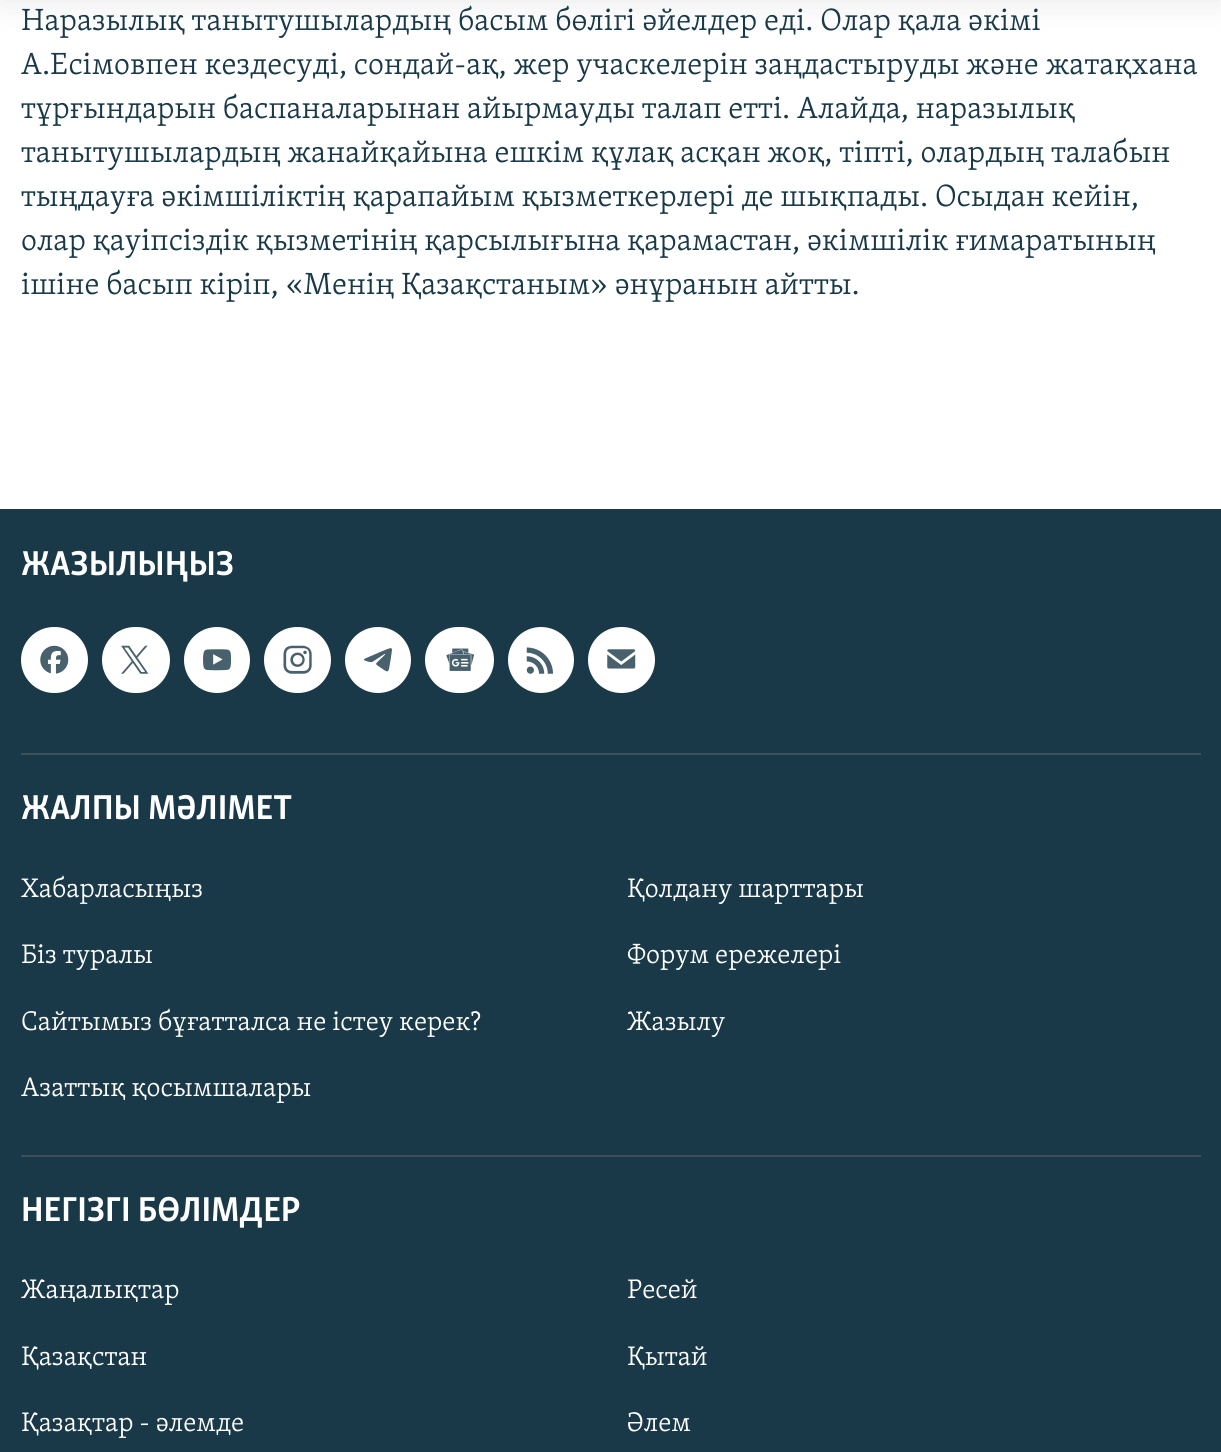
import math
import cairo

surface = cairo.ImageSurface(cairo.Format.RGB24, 1221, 1452)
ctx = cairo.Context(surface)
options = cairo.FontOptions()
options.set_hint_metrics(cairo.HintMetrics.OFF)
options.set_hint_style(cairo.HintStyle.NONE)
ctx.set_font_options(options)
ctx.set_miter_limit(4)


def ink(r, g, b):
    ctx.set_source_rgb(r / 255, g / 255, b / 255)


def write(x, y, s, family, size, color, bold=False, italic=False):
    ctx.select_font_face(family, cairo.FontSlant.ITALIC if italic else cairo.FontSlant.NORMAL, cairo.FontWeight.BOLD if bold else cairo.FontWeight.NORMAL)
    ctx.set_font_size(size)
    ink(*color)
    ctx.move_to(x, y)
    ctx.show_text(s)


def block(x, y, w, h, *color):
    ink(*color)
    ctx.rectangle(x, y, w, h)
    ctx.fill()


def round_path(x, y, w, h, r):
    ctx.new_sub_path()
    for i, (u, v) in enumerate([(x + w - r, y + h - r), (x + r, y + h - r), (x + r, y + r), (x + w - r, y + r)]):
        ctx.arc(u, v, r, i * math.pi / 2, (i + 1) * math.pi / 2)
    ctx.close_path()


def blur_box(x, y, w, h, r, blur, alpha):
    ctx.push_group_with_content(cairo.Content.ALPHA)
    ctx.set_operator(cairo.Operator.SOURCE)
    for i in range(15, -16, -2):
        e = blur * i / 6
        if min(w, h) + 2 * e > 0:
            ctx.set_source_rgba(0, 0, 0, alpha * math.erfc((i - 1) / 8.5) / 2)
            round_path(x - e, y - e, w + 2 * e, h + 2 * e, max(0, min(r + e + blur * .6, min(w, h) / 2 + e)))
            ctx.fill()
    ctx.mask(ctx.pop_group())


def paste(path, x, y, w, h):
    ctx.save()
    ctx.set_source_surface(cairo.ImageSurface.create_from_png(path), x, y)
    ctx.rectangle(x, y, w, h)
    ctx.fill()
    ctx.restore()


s1 = dict(family="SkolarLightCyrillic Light", size=31.5, color=(26, 57, 72))
s2 = dict(family="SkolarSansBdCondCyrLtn", size=35.5, color=(255, 255, 255), bold=True)
s3 = dict(family="SkolarLightCyrillic Light", size=27.6, color=(255, 255, 255))

ink(255, 255, 255)
ctx.paint()
ink(0, 0, 0)
blur_box(0, -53, 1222, 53, 0, 17.5, 0.1)
write(21, 30, "Наразылық танытушылардың басым бөлігі әйелдер еді. Олар қала әкімі", **s1)
write(21, 74, "А.Есімовпен кездесуді, сондай-ақ, жер учаскелерін заңдастыруды және жатақхана", **s1)
write(21, 118, "тұрғындарын баспаналарынан айырмауды талап етті. Алайда, наразылық", **s1)
write(21, 162, "танытушылардың жанайқайына ешкім құлақ асқан жоқ, тіпті, олардың талабын", **s1)
write(21, 206, "тыңдауға әкімшіліктің қарапайым қызметкерлері де шықпады. Осыдан кейін,", **s1)
write(21, 250, "олар қауіпсіздік қызметінің қарсылығына қарамастан, әкімшілік ғимаратының", **s1)
write(21, 294, "ішіне басып кіріп, «Менің Қазақстаным» әнұранын айтты.", **s1)
block(0, 509, 1221, 943, 26, 57, 72)
write(21, 575, "ЖАЗЫЛЫҢЫЗ", **s2)
round_path(21, 627, 67, 66, 33)
ctx.fill()
paste("pic1.png", 40, 645, 29, 29)
round_path(102, 627, 68, 66, 33)
ctx.fill()
paste("pic2.png", 121, 645, 28, 29)
ctx.arc(217, 660, 33, 0, 2 * math.pi)
ctx.fill()
paste("pic3.png", 203, 649, 28, 22)
round_path(264, 627, 67, 66, 33)
ctx.fill()
paste("pic4.png", 283, 645, 29, 29)
ctx.arc(378, 660, 33, 0, 2 * math.pi)
ctx.fill()
paste("pic5.png", 364, 648, 28, 24)
round_path(425, 627, 69, 66, 33)
ctx.fill()
paste("pic6.png", 446, 648, 29, 23)
ctx.arc(541, 660, 33, 0, 2 * math.pi)
ctx.fill()
paste("pic7.png", 526, 647, 27, 27)
round_path(588, 627, 67, 66, 33)
ctx.fill()
paste("pic8.png", 607, 649, 29, 20)
block(21, 753, 1180, 2, 62, 79, 87)
write(21, 819, "ЖАЛПЫ МӘЛІМЕТ", **s2)
write(21, 897, "Хабарласыңыз", **s3)
write(627, 897, "Қолдану шарттары", **s3)
write(21, 963, "Біз туралы", **s3)
write(627, 963, "Форум ережелері", **s3)
write(21, 1030, "Сайтымыз бұғатталса не істеу керек?", **s3)
write(627, 1030, "Жазылу", **s3)
write(21, 1096, "Азаттық қосымшалары", **s3)
block(21, 1155, 1180, 2, 62, 79, 87)
write(21, 1221, "НЕГІЗГІ БӨЛІМДЕР", **s2)
write(21, 1298, "Жаңалықтар", **s3)
write(627, 1298, "Ресей", **s3)
write(21, 1365, "Қазақстан", **s3)
write(627, 1365, "Қытай", **s3)
write(21, 1431, "Қазақтар - әлемде", **s3)
write(627, 1431, "Әлем", **s3)
surface.write_to_png("screenshot.png")
